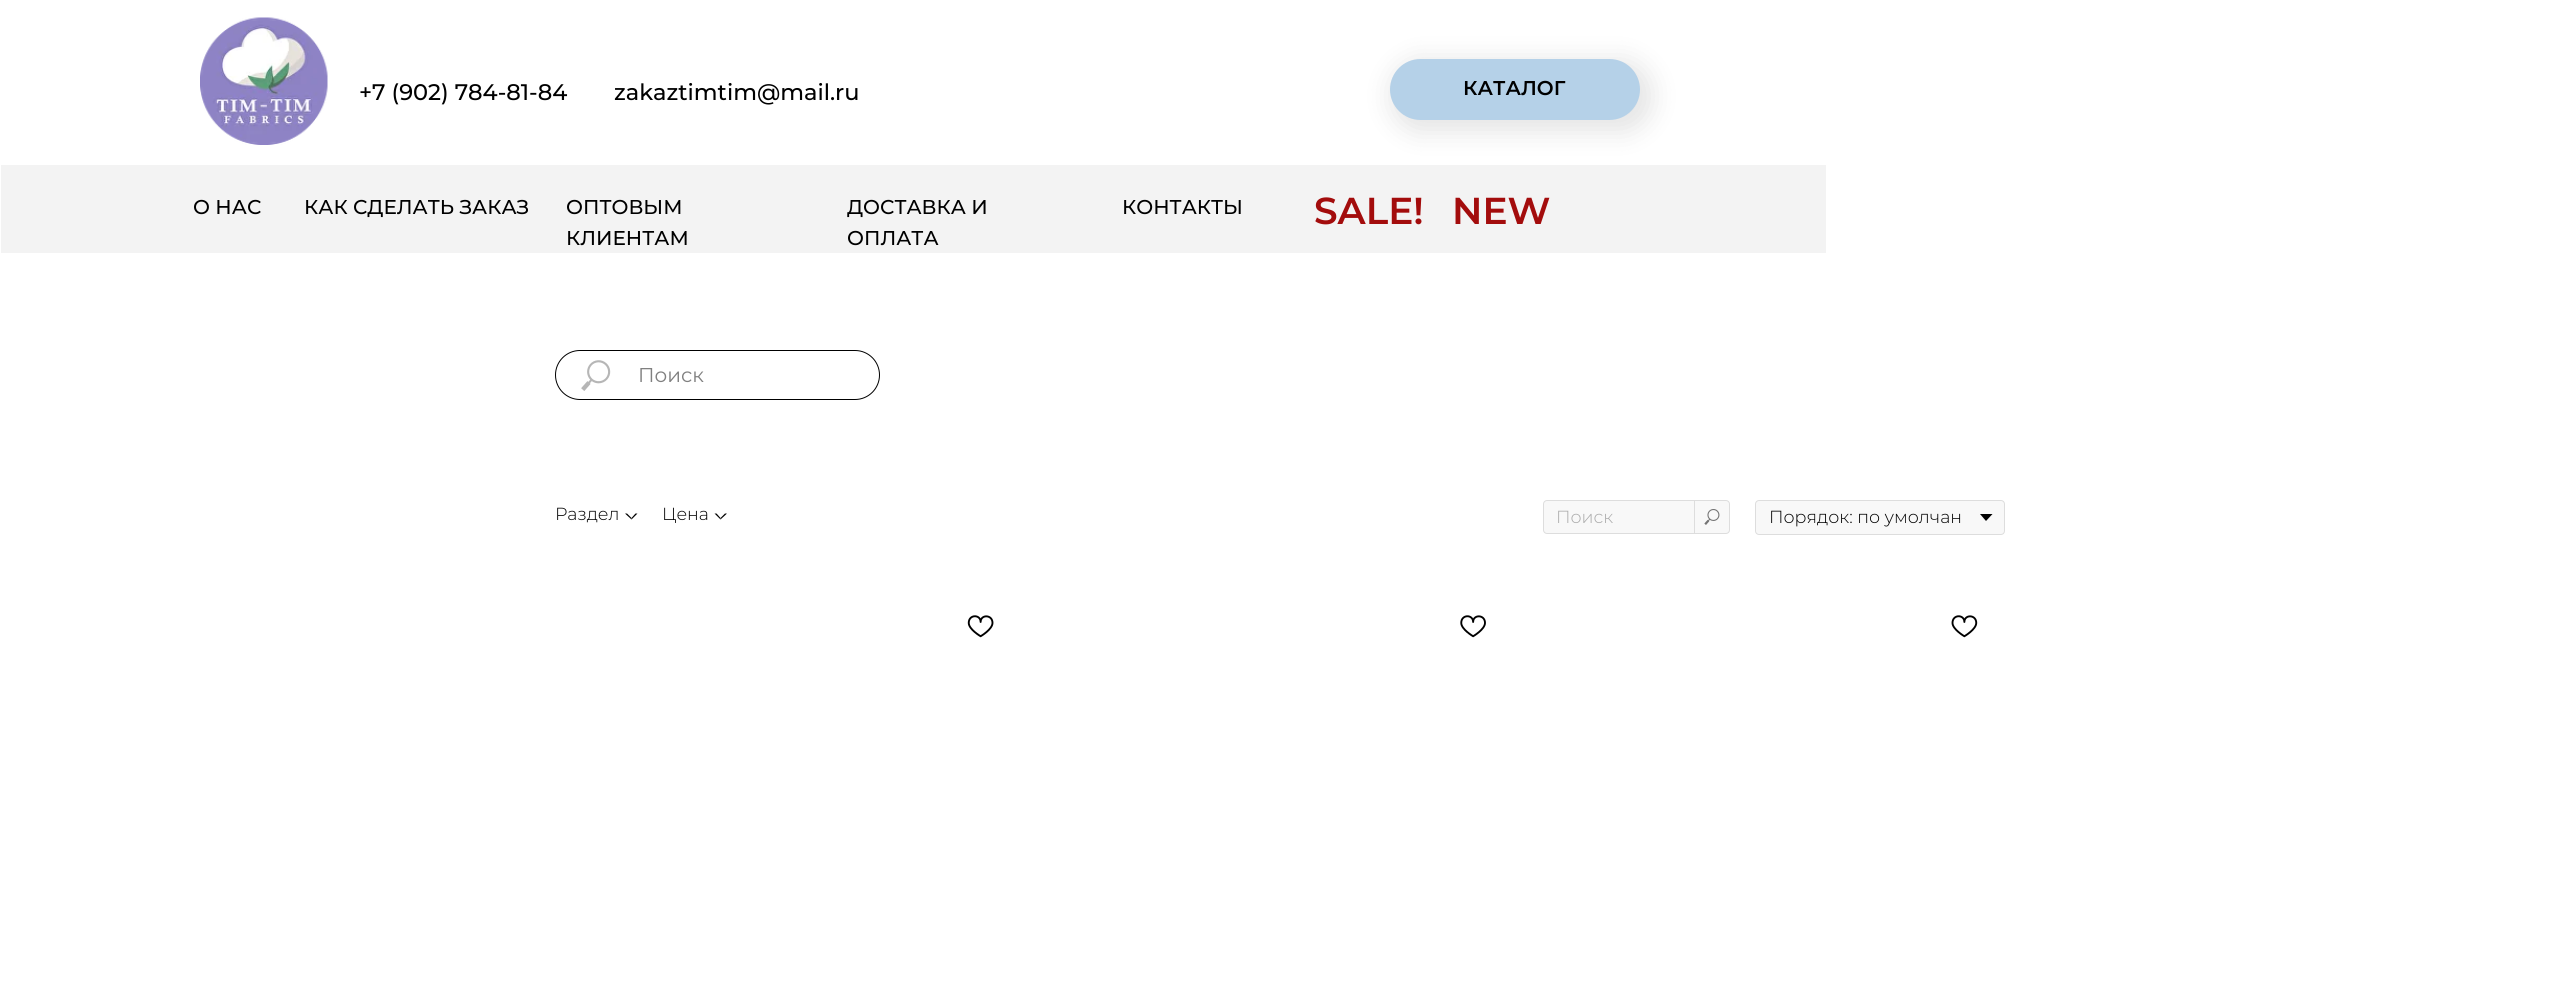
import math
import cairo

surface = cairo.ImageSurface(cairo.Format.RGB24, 2559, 985)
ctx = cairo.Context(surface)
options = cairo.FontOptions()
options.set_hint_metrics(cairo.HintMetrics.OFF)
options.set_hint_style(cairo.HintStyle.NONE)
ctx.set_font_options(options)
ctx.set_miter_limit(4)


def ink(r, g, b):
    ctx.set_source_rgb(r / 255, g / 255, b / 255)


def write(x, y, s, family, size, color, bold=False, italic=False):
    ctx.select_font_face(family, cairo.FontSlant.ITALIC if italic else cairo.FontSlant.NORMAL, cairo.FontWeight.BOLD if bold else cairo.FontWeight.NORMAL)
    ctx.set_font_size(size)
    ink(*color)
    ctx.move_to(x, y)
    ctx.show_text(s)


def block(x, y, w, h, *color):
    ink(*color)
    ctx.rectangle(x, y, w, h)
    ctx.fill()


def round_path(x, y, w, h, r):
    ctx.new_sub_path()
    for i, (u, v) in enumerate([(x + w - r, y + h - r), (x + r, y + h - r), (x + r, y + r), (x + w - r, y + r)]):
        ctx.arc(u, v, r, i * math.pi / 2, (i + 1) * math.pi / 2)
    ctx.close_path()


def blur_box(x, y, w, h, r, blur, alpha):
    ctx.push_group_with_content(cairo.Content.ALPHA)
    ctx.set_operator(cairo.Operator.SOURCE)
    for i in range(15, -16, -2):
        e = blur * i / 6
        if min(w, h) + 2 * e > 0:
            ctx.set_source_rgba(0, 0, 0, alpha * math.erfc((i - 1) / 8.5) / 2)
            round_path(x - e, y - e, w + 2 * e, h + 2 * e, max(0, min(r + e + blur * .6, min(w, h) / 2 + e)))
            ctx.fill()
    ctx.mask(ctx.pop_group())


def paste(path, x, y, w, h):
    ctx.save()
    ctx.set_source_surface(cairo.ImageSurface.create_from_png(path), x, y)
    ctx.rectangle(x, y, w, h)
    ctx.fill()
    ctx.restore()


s1 = dict(family="Montserrat Medium", size=22.5, color=(0, 0, 0))
s2 = dict(family="Montserrat SemiBold", size=20, color=(0, 0, 0))
s3 = dict(family="Montserrat Medium", size=20, color=(0, 0, 0))
s4 = dict(family="Montserrat SemiBold", size=37.5, color=(163, 12, 12))
s5 = dict(family="Montserrat", size=20, color=(128, 128, 128))
s6 = dict(family="Montserrat Light", size=17.5, color=(0, 0, 0))
s7 = dict(family="Montserrat Light", size=17.5, color=(170, 170, 170))

ink(255, 255, 255)
ctx.paint()
paste("pic1.png", 200, 17, 128, 128)
write(359, 100, "+7 (902) 784-81-84", **s1)
write(614, 100, "zakaztimtim@mail.ru", **s1)
block(1, 165, 1825, 88, 243, 243, 243)
ink(0, 0, 0)
blur_box(1390, 59, 263, 74, 37, 12.5, 0.1)
ink(181, 209, 232)
round_path(1390, 59, 250, 61, 30.5)
ctx.fill()
write(1463, 95, "КАТАЛОГ", **s2)
write(193, 214, "О НАС", **s3)
write(304, 214, "КАК СДЕЛАТЬ ЗАКАЗ", **s3)
write(566, 214, "ОПТОВЫМ", **s3)
write(566, 245, "КЛИЕНТАМ", **s3)
write(847, 214, "ДОСТАВКА И", **s3)
write(847, 245, "ОПЛАТА", **s3)
write(1122, 214, "КОНТАКТЫ", **s3)
write(1314, 224, "SALE!", **s4)
write(1452, 224, "NEW", **s4)
round_path(555.5, 350.5, 324, 49, 24.5)
ink(0, 0, 0)
ctx.set_line_width(1)
ctx.stroke()
paste("pic2.png", 581, 360, 30, 31)
write(638, 382, "Поиск", **s5)
write(555, 520, "Раздел", **s6)
ctx.new_path()
ctx.move_to(637.5, 513.5)
ctx.line_to(631.5, 519.5)
ctx.line_to(631.5, 518)
ctx.line_to(635.5, 513.5)
ctx.close_path()
ctx.fill()
ctx.new_path()
ctx.move_to(631.5, 519.5)
ctx.line_to(625, 513.5)
ctx.line_to(627, 513.5)
ctx.line_to(631.5, 518)
ctx.close_path()
ctx.fill()
write(662, 520, "Цена", **s6)
ctx.new_path()
ctx.move_to(727, 513.5)
ctx.line_to(720.5, 519.5)
ctx.line_to(720.5, 518)
ctx.line_to(725, 513.5)
ctx.close_path()
ctx.fill()
ctx.new_path()
ctx.move_to(720.5, 519.5)
ctx.line_to(714.5, 513.5)
ctx.line_to(716.5, 513.5)
ctx.line_to(720.5, 518)
ctx.close_path()
ctx.fill()
ink(248, 248, 248)
round_path(1543.5, 500.5, 186, 33, 3.5)
ctx.fill_preserve()
ink(221, 221, 221)
ctx.stroke()
write(1556, 523, "Поиск", **s7)
block(1694, 500, 1, 34, 221, 221, 221)
paste("pic3.png", 1704, 509, 16, 16)
ink(248, 248, 248)
round_path(1755.5, 500.5, 249, 34, 3.5)
ctx.fill_preserve()
ink(221, 221, 221)
ctx.stroke()
write(1769, 523, "Порядок: по умолчан", **s6)
ctx.new_path()
ctx.move_to(1980, 514)
ctx.line_to(1992.5, 514)
ctx.line_to(1986, 521)
ctx.close_path()
ctx.fill()
paste("pic4.png", 967, 615, 27, 23)
paste("pic5.png", 1460, 615, 26, 23)
paste("pic6.png", 1951, 615, 27, 23)
surface.write_to_png("screenshot.png")
